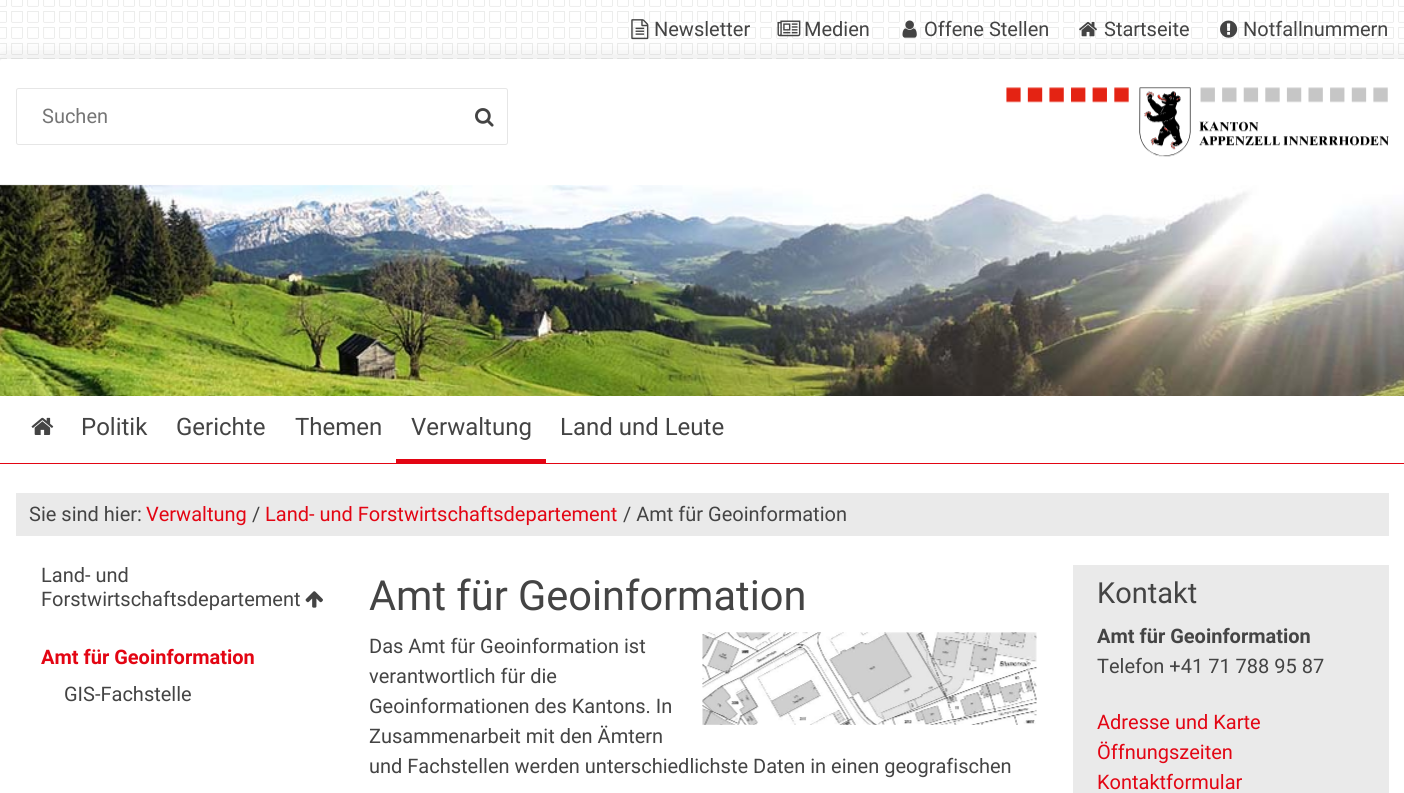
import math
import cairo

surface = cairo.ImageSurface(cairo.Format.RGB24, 1404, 793)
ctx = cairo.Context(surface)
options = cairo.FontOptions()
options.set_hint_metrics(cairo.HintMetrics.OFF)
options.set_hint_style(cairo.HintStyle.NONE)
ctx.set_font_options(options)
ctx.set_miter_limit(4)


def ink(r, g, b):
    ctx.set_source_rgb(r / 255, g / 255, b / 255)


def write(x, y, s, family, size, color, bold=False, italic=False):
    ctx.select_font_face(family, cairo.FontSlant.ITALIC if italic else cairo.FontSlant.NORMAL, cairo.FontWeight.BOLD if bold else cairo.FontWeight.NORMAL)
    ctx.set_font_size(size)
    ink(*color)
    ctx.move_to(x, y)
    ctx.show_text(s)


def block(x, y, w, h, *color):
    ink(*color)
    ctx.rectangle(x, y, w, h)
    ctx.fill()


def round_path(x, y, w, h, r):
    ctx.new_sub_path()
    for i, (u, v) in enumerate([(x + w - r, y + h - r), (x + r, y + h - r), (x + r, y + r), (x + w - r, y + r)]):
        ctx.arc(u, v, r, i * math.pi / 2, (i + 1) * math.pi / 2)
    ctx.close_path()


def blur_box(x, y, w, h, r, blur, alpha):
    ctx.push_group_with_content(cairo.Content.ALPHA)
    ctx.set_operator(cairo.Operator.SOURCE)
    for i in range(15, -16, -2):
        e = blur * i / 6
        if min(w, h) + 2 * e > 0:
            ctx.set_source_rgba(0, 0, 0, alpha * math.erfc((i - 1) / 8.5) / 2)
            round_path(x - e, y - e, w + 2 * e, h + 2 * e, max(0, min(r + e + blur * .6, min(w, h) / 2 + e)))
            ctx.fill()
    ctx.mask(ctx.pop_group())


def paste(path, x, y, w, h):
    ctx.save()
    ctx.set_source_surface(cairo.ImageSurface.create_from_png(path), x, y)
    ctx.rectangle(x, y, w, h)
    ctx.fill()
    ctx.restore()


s1 = dict(family="Roboto", size=20, color=(68, 68, 68))
s2 = dict(family="Roboto", size=20, color=(117, 117, 117))
s3 = dict(family="Roboto", size=24, color=(68, 68, 68))
s4 = dict(family="Roboto", size=20, color=(227, 5, 19))
s5 = dict(family="Roboto", size=20, color=(227, 5, 19), bold=True)
s6 = dict(family="Roboto", size=41.5, color=(68, 68, 68))
s7 = dict(family="Roboto", size=29, color=(68, 68, 68))
s8 = dict(family="Roboto", size=20, color=(68, 68, 68), bold=True)

ink(255, 255, 255)
ctx.paint()
paste("pic1.png", 0, 0, 1404, 59)
paste("pic2.png", 631, 19, 18, 21)
write(654, 36, "Newsletter", **s1)
paste("pic3.png", 777, 20, 24, 17)
write(804, 36, "Medien", **s1)
paste("pic4.png", 902, 20, 15, 18)
write(924, 36, "Offene Stellen", **s1)
paste("pic5.png", 1079, 21, 18, 16)
write(1104, 36, "Startseite", **s1)
paste("pic6.png", 1220, 20, 18, 18)
write(1243, 36, "Notfallnummern", **s1)
ink(0, 0, 0)
blur_box(0, 65, 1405, 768, 2.5, 12.5, 0.2)
ink(255, 255, 255)
round_path(0, 59, 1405, 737, 2.5)
ctx.fill()
round_path(16.5, 88.5, 491, 56, 2)
ink(230, 230, 230)
ctx.set_line_width(1)
ctx.stroke()
write(42, 123, "Suchen", **s2)
paste("pic7.png", 475, 108, 19, 19)
paste("pic8.png", 1006, 87, 383, 70)
block(0, 463, 1404, 1, 227, 5, 19)
paste("pic9.png", 0, 184, 1404, 212)
paste("pic10.png", 31, 417, 23, 18)
write(81, 435, "Politik", **s3)
write(176, 435, "Gerichte", **s3)
write(295, 435, "Themen", **s3)
block(396, 459, 150, 4, 227, 5, 19)
write(411, 435, "Verwaltung", **s3)
write(560, 435, "Land und Leute", **s3)
block(16, 493, 1373, 43, 234, 234, 234)
write(29, 521, "Sie sind hier:", **s1)
write(146, 521, "Verwaltung", **s4)
write(252, 521, "/", **s1)
write(265, 521, "Land- und Forstwirtschaftsdepartement", **s4)
write(623, 521, "/ Amt für Geoinformation", **s1)
write(41, 582, "Land- und", **s1)
write(41, 606, "Forstwirtschaftsdepartement", **s1)
paste("pic11.png", 305, 591, 18, 17)
write(41, 664, "Amt für Geoinformation", **s5)
write(64, 701, "GIS-Fachstelle", **s1)
write(369, 610, "Amt für Geoinformation", **s6)
paste("pic12.png", 702, 632, 335, 93)
write(369, 653, "Das Amt für Geoinformation ist", **s1)
write(369, 683, "verantwortlich für die", **s1)
write(369, 713, "Geoinformationen des Kantons. In", **s1)
write(369, 743, "Zusammenarbeit mit den Ämtern", **s1)
write(369, 773, "und Fachstellen werden unterschiedlichste Daten in einen geografischen", **s1)
block(1073, 565, 316, 228, 234, 234, 234)
write(1097, 603, "Kontakt", **s7)
write(1097, 643, "Amt für Geoinformation", **s8)
write(1097, 673, "Telefon +41 71 788 95 87", **s1)
write(1097, 729, "Adresse und Karte", **s4)
write(1097, 759, "Öffnungszeiten", **s4)
write(1097, 789, "Kontaktformular", **s4)
surface.write_to_png("screenshot.png")
